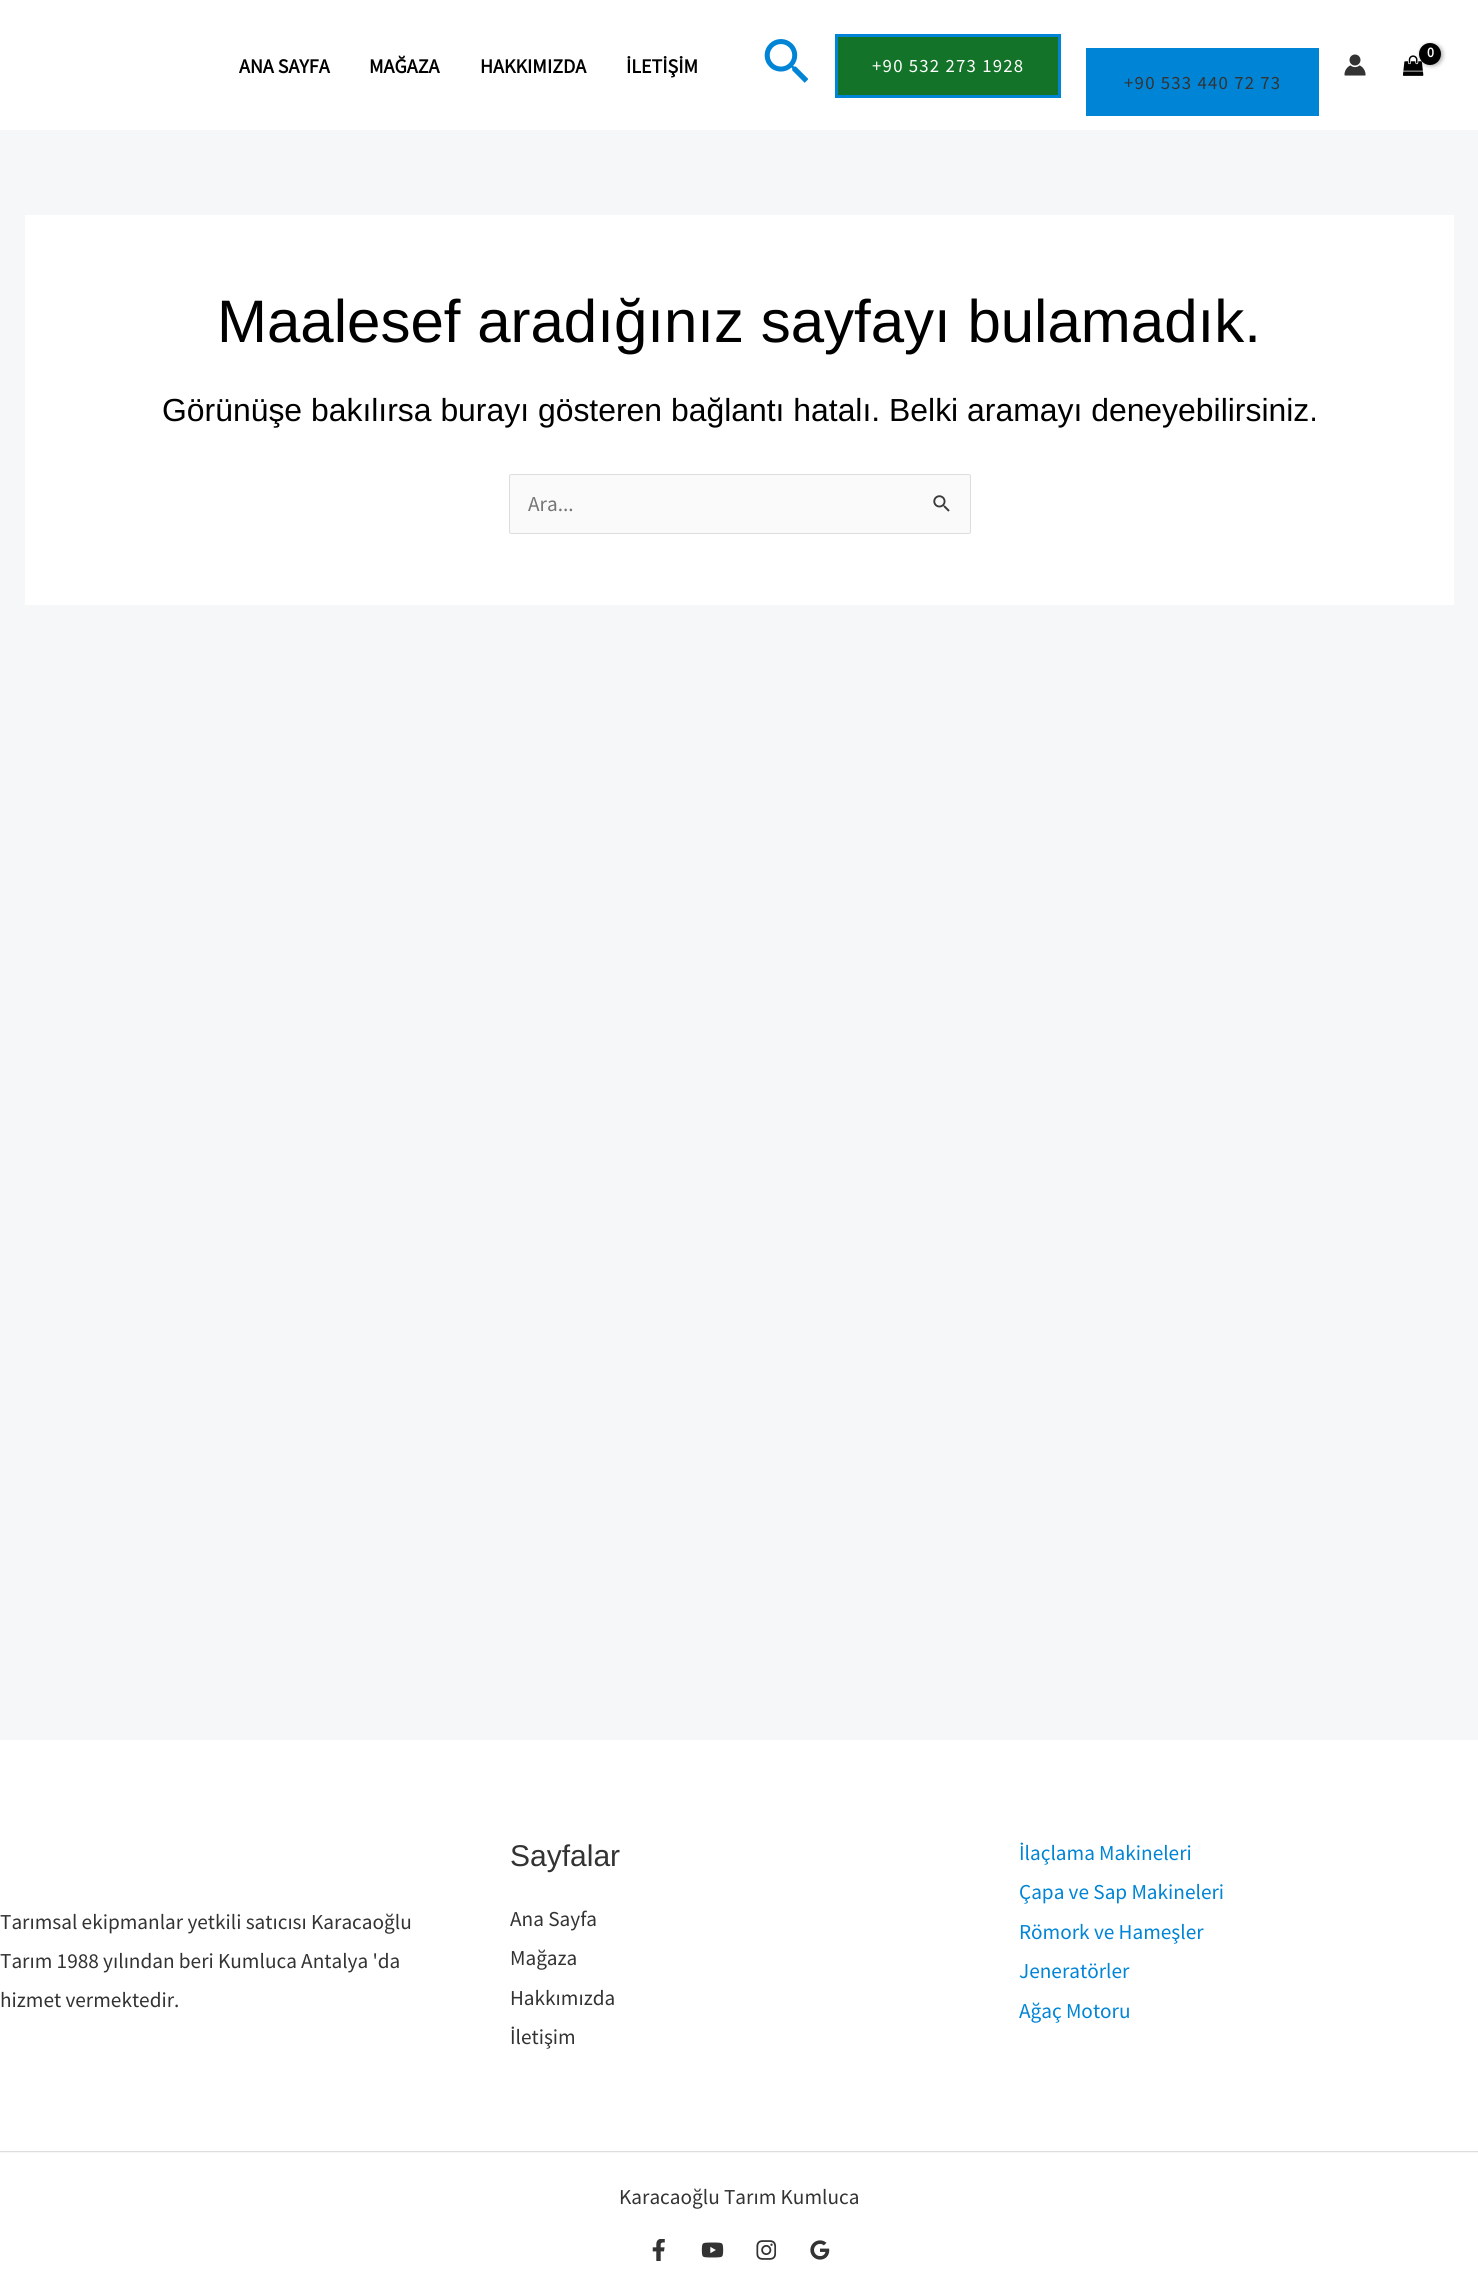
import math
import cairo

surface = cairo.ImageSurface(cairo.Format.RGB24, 1478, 2293)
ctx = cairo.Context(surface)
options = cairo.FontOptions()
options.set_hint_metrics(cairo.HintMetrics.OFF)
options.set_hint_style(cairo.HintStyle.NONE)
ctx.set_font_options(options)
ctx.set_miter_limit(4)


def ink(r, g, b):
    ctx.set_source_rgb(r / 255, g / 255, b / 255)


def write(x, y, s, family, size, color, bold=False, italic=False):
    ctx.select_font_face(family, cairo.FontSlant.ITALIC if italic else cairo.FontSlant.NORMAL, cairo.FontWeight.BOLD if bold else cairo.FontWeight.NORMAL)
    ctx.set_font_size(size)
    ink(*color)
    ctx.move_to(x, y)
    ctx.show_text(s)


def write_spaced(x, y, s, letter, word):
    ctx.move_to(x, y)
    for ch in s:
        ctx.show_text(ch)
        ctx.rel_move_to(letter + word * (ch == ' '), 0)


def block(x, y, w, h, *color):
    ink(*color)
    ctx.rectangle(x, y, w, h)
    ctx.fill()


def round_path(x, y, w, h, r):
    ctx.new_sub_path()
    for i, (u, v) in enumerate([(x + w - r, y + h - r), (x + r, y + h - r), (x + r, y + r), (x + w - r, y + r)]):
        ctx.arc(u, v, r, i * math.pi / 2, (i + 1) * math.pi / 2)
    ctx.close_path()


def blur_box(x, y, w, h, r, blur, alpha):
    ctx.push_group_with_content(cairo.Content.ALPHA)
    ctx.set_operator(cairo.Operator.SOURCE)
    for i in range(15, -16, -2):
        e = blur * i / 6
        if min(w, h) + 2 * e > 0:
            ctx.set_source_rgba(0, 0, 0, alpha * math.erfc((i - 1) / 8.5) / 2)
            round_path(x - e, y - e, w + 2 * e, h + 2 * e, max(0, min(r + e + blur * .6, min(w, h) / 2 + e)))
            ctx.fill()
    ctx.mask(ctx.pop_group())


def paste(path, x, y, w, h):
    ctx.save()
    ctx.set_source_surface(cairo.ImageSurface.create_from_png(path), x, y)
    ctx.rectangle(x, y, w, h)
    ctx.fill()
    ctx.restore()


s1 = dict(family="Source Sans Pro", size=20, color=(0, 0, 0), bold=True)
s2 = dict(family="Liberation Sans", size=60, color=(0, 0, 0))
s3 = dict(family="Liberation Sans", size=31.9, color=(0, 0, 0))
s4 = dict(family="Source Sans Pro", size=21.25, color=(117, 117, 117))
s5 = dict(family="Source Sans Pro", size=21.25, color=(51, 51, 51))
s6 = dict(family="Liberation Sans", size=30, color=(51, 51, 51))
s7 = dict(family="Source Sans Pro", size=21.25, color=(0, 132, 214))

ink(245, 247, 249)
ctx.paint()
block(0, 0, 1478, 130, 255, 255, 255)
write(239, 73, "ANA SAYFA", **s1)
write(369, 73, "MAĞAZA", **s1)
write(480, 73, "HAKKIMIZDA", **s1)
write(626, 73, "İLETİŞİM", **s1)
paste("pic1.png", 764, 39, 44, 44)
paste("pic2.png", 1403, 55, 21, 21)
ink(0, 0, 0)
blur_box(1420, 44, 23, 22, 11, 2, 0.3)
ink(0, 0, 0)
ctx.arc(1430, 54, 11, 0, 2 * math.pi)
ctx.fill()
ctx.set_font_size(14)
ink(255, 254, 254)
write_spaced(1427, 57, "0", -1, 0)
ink(19, 115, 40)
ctx.rectangle(836.5, 35.5, 223, 61)
ctx.fill_preserve()
ink(0, 132, 214)
ctx.set_line_width(3)
ctx.stroke()
ctx.select_font_face("Source Sans Pro")
ctx.set_font_size(18.75)
ink(255, 254, 254)
write_spaced(872, 72, "+90 532 273 1928", 1.25, 0)
paste("pic3.png", 1344, 54, 22, 22)
block(1086, 48, 233, 68, 0, 132, 214)
ink(51, 51, 51)
write_spaced(1124, 89, "+90 533 440 72 73", 1.25, 0)
block(25, 215, 1429, 390, 255, 255, 255)
write(217, 342, "Maalesef aradığınız sayfayı bulamadık.", **s2)
write(162, 421, "Görünüşe bakılırsa burayı gösteren bağlantı hatalı. Belki aramayı deneyebilirsiniz.", **s3)
ink(250, 250, 250)
round_path(509.5, 474.5, 461, 59, 2)
ctx.fill_preserve()
ink(221, 221, 221)
ctx.set_line_width(1)
ctx.stroke()
write(528, 511, "Ara...", **s4)
paste("pic4.png", 933, 495, 17, 17)
block(0, 1740, 1478, 411, 255, 255, 255)
write(0, 1929, "Tarımsal ekipmanlar yetkili satıcısı Karacaoğlu", **s5)
write(0, 1968, "Tarım 1988 yılından beri Kumluca Antalya 'da", **s5)
write(0, 2007, "hizmet vermektedir.", **s5)
write(510, 1866, "Sayfalar", **s6)
write(510, 1926, "Ana Sayfa", **s5)
write(510, 1965, "Mağaza", **s5)
write(510, 2005, "Hakkımızda", **s5)
write(510, 2044, "İletişim", **s5)
write(1019, 1860, "İlaçlama Makineleri", **s7)
write(1019, 1899, "Çapa ve Sap Makineleri", **s7)
write(1019, 1939, "Römork ve Hameşler", **s7)
write(1019, 1978, "Jeneratörler", **s7)
write(1019, 2018, "Ağaç Motoru", **s7)
block(0, 2153, 1478, 140, 255, 255, 255)
block(0, 2151, 1478, 1, 221, 221, 221)
write(619, 2204, "Karacaoğlu Tarım Kumluca", **s5)
paste("pic5.png", 652, 2239, 13, 22)
paste("pic6.png", 701, 2242, 23, 16)
paste("pic7.png", 756, 2240, 21, 20)
paste("pic8.png", 810, 2240, 20, 20)
surface.write_to_png("screenshot.png")
